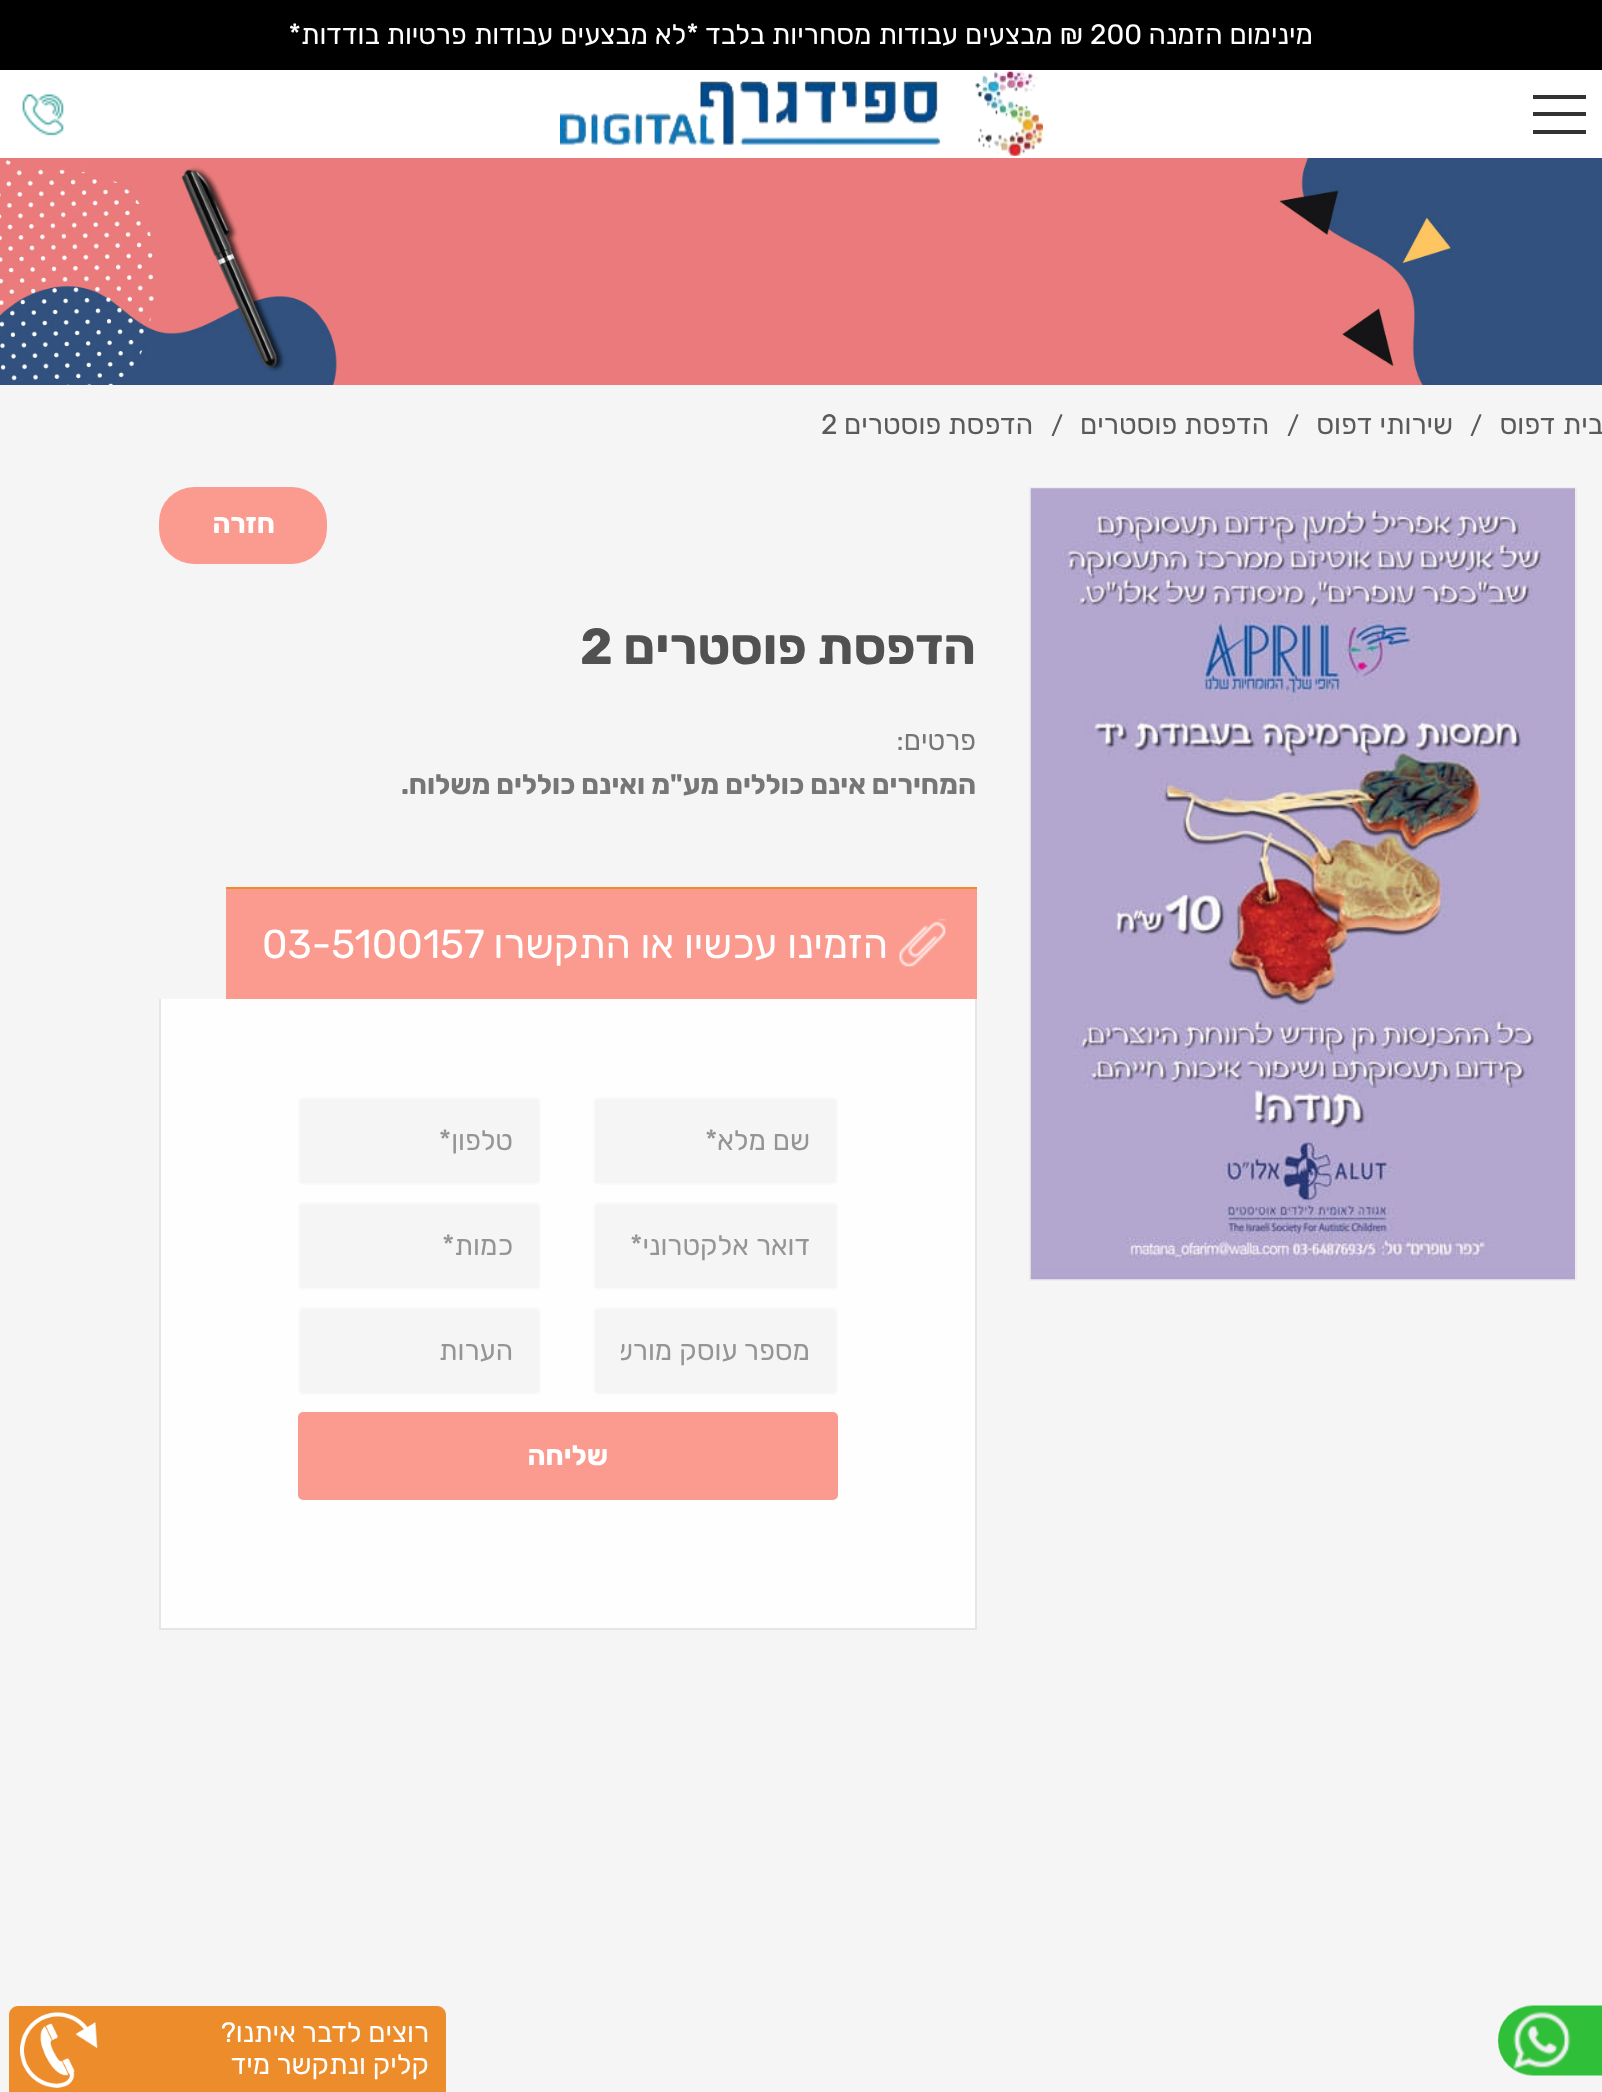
<svg xmlns="http://www.w3.org/2000/svg" width="1602" height="2092" viewBox="0 0 1602 2092">
  <defs>
    <clipPath id="clip1"><path d="M621 1334h189v33H621z"/></clipPath>
  </defs>
  <rect width="100%" height="100%" fill="#f5f5f5"/>
  <path d="M0 0h1602v70H0z" fill="#000"/>
  <path d="M0 70h1602v88H0z" fill="#fff"/>
  <path d="M1533 130h53v4H1533z" fill="#333"/>
  <path d="M1533 112h53v4H1533z" fill="#333"/>
  <path d="M1533 95h53v4H1533z" fill="#333"/>
  <image x="560" y="71" width="483" height="85" href="img/1.png"/>
  <image x="22" y="94" width="42" height="42" href="img/2.png"/>
  <image x="0" y="158" width="1602" height="227" href="img/3.png"/>
  <path d="M1030 488h546v792H1030z" fill="none" stroke="#ededed" stroke-width="2"/>
  <image x="1030" y="488" width="545" height="792" href="img/4.png"/>
  <rect x="159" y="487" width="168" height="77" rx="35" fill="#fb9b8f"/>
  <path d="M226 889h751v110H226z" fill="#fb9b8f"/>
  <path d="M226 887h751v2H226z" fill="#ed8c2b"/>
  <image x="899" y="918" width="49" height="49" href="img/5.png"/>
  <path d="M161 999h814v629H161z" fill="#fefefe"/>
  <path d="M975 999h2v630H975z" fill="#e6e6e6"/>
  <path d="M159 1628h818v2H159z" fill="#e6e6e6"/>
  <path d="M159 999h2v630H159z" fill="#e6e6e6"/>
  <rect x="594" y="1098" width="243" height="86" rx="4" fill="#f5f5f5" stroke="#fafafa" stroke-width="2"/>
  <rect x="299" y="1098" width="241" height="86" rx="4" fill="#f5f5f5" stroke="#fafafa" stroke-width="2"/>
  <rect x="594" y="1203" width="243" height="86" rx="4" fill="#f5f5f5" stroke="#fafafa" stroke-width="2"/>
  <rect x="299" y="1203" width="241" height="86" rx="4" fill="#f5f5f5" stroke="#fafafa" stroke-width="2"/>
  <rect x="594" y="1308" width="243" height="86" rx="4" fill="#f5f5f5" stroke="#fafafa" stroke-width="2"/>
  <rect x="299" y="1308" width="241" height="86" rx="4" fill="#f5f5f5" stroke="#fafafa" stroke-width="2"/>
  <rect x="298" y="1412" width="540" height="88" rx="5" fill="#fb9b8f"/>
  <image x="1498" y="2005" width="104" height="71" href="img/6.png"/>
  <path d="M18 2006H437C442 2006 446 2010 446 2015V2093H9V2015C9 2010 13 2006 18 2006Z" fill="#ed8c2b"/>
  <image x="20" y="2012" width="78" height="76" href="img/7.png"/>
  <text x="1313" y="44" font-family="Rubik" font-size="28" direction="rtl" fill="#fff">מינימום הזמנה</text>
  <text x="1090" y="44" font-family="Rubik" font-size="28" fill="#fff">200</text>
  <text x="1083" y="44" word-spacing="0.25" font-family="Rubik" font-size="28" direction="rtl" fill="#fff">₪ מבצעים עבודות מסחריות בלבד *לא מבצעים עבודות פרטיות בודדות*</text>
  <text x="1603" y="434" word-spacing="1" font-family="Rubik" font-size="28" direction="rtl" fill="#5a5a5a">בית דפוס</text>
  <text x="1470" y="434" font-family="Rubik" font-size="25" fill="#5a5a5a">/</text>
  <text x="1453" y="434" word-spacing="1" font-family="Rubik" font-size="28" direction="rtl" fill="#5a5a5a">שירותי דפוס</text>
  <text x="1287" y="434" font-family="Rubik" font-size="25" fill="#5a5a5a">/</text>
  <text x="1269" y="434" font-family="Rubik" font-size="28" direction="rtl" fill="#5a5a5a">הדפסת פוסטרים</text>
  <text x="1051" y="434" font-family="Rubik" font-size="25" fill="#5a5a5a">/</text>
  <text x="1033" y="434" font-family="Rubik" font-size="28" direction="rtl" fill="#5a5a5a">הדפסת פוסטרים</text>
  <text x="821" y="434" font-family="Rubik" font-size="28" fill="#5a5a5a">2</text>
  <text x="275" y="533" font-family="Rubik" font-size="28" font-weight="bold" direction="rtl" fill="#fff">חזרה</text>
  <text x="976" y="664" font-family="Rubik" font-size="50.5" font-weight="bold" direction="rtl" fill="#515151">הדפסת פוסטרים</text>
  <text x="580" y="664" font-family="Rubik" font-size="50.5" font-weight="bold" fill="#515151">2</text>
  <text x="976" y="750" font-family="Rubik" font-size="28" direction="rtl" fill="#767676">פרטים:</text>
  <text x="976" y="794" font-family="Rubik" font-size="28" font-weight="bold" direction="rtl" fill="#767676">המחירים אינם כוללים מע"מ ואינם כוללים משלוח.</text>
  <text x="888" y="958" font-family="Rubik" font-size="40.25" direction="rtl" fill="#fff">הזמינו עכשיו או התקשרו</text>
  <text x="262" y="958" font-family="Rubik" font-size="40.25" fill="#fff">03-5100157</text>
  <g font-family="Rubik" font-size="28" direction="rtl" fill="#959595">
    <text x="810" y="1150">שם מלא*</text>
    <text x="513" y="1150">טלפון*</text>
    <text x="810" y="1255" word-spacing="1">דואר אלקטרוני*</text>
    <text x="513" y="1255">כמות*</text>
  </g>
  <g clip-path="url(#clip1)">
    <text x="810" y="1360" font-family="Rubik" font-size="28" direction="rtl" fill="#959595">מספר עוסק מורשה</text>
  </g>
  <text x="513" y="1360" font-family="Rubik" font-size="28" direction="rtl" fill="#959595">הערות</text>
  <text x="608" y="1465" font-family="Rubik" font-size="28" font-weight="bold" direction="rtl" fill="#fff">שליחה</text>
  <g font-family="Rubik" font-size="28" direction="rtl" fill="#fff">
    <text x="429" y="2042">רוצים לדבר איתנו?</text>
    <text x="429" y="2074">קליק ונתקשר מיד</text>
  </g>
</svg>
